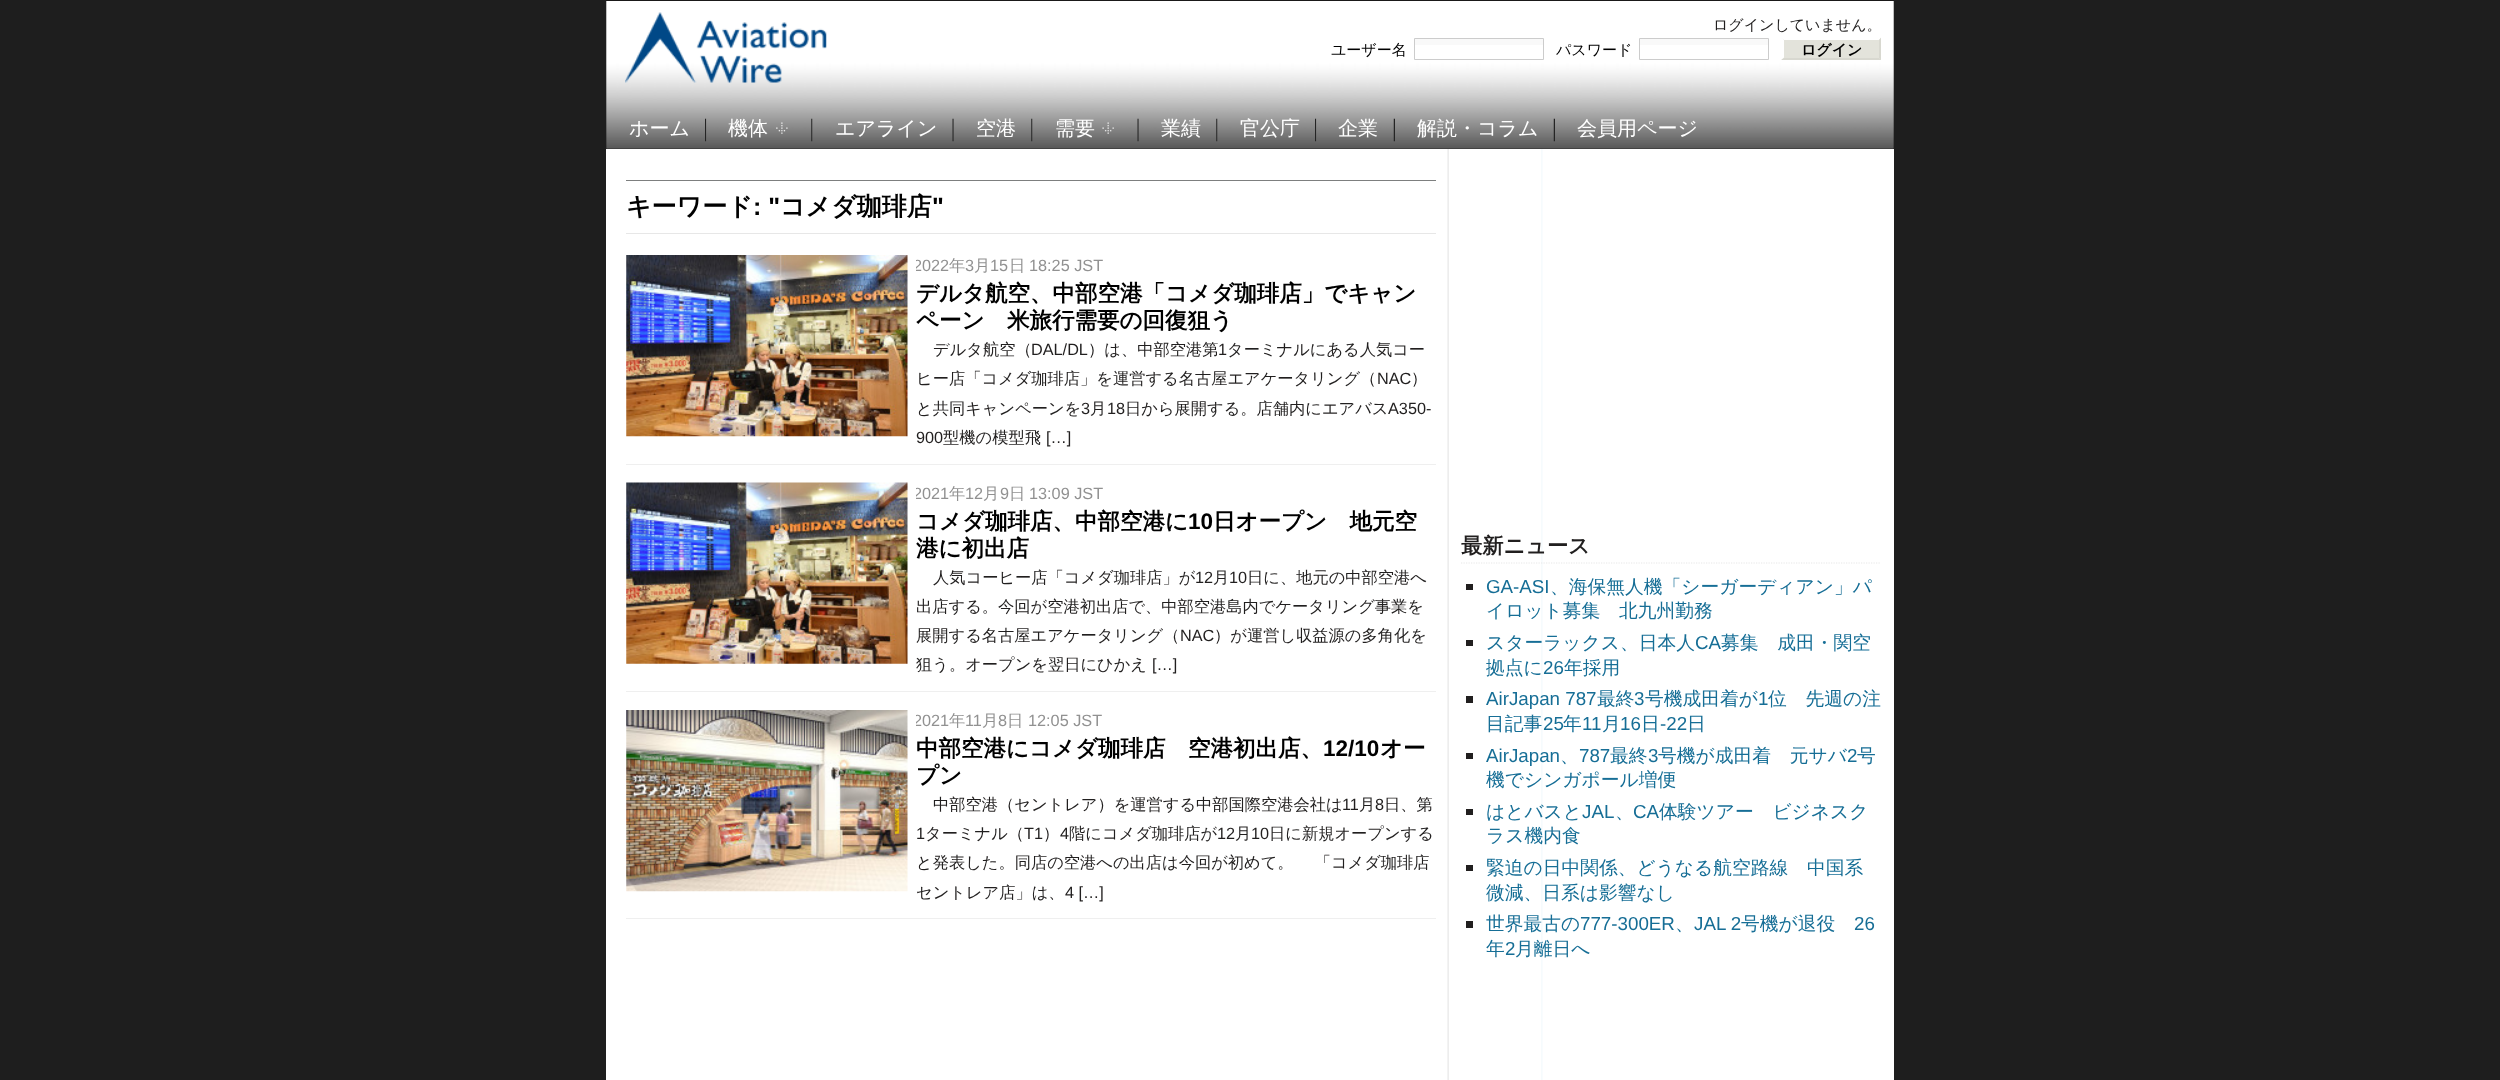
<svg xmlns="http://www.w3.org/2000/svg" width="2500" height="1080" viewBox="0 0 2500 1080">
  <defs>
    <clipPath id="clip1"><path d="M916 255h520v23H916z"/></clipPath>
    <clipPath id="clip2"><path d="M916 483h520v22H916z"/></clipPath>
    <clipPath id="clip3"><path d="M916 710h520v23H916z"/></clipPath>
  </defs>
  <rect width="100%" height="100%" fill="#1e1e1e"/>
  <path d="M606 149h1288v931H606z" fill="#fff"/>
  <image x="1447" y="149" width="96" height="931" href="img/1.png"/>
  <path d="M606 1h1288v148H606z" fill="#000"/>
  <image x="606" y="1" width="1288" height="148" href="img/2.png"/>
  <path d="M606 0h1288v1H606z" fill="#1a1919"/>
  <image x="625" y="12" width="202" height="71" href="img/3.png"/>
  <path d="M1414 39h130v6H1414z" fill="#f9f9f9"/>
  <path d="M1414.5 38.5h129v21H1414.5z" fill="none" stroke="#ccc"/>
  <path d="M1639 39h130v6H1639z" fill="#f9f9f9"/>
  <path d="M1639.5 38.5h129v21H1639.5z" fill="none" stroke="#ccc"/>
  <path d="M1781 38h100v22H1781z" fill="#e3e3db"/>
  <path d="M1781 38H1881L1879 40H1784Z" fill="#fff"/>
  <path d="M1881 37.5V60L1879 57.5V40Z" fill="#d8d8d0"/>
  <path d="M1881 60H1781L1784 58H1879Z" fill="#d8d8d0"/>
  <path d="M1781 60V37.5L1784 40V57.5Z" fill="#fff"/>
  <image x="705" y="118" width="2" height="24" href="img/4.png"/>
  <image x="811" y="118" width="2" height="24" href="img/5.png"/>
  <image x="776" y="122" width="12" height="12" href="img/6.png"/>
  <image x="952" y="118" width="2" height="24" href="img/7.png"/>
  <image x="1031" y="118" width="2" height="24" href="img/5.png"/>
  <image x="1137" y="118" width="2" height="24" href="img/7.png"/>
  <image x="1102" y="122" width="12" height="12" href="img/8.png"/>
  <image x="1216" y="118" width="2" height="24" href="img/9.png"/>
  <image x="1315" y="118" width="2" height="24" href="img/4.png"/>
  <image x="1393" y="118" width="2" height="24" href="img/10.png"/>
  <image x="1553" y="118" width="2" height="24" href="img/10.png"/>
  <path d="M626 180h810v1H626z" fill="#7d7f7f"/>
  <path d="M626 233h810v1H626z" fill="#e7e7e7"/>
  <path d="M626 464h810v1H626z" fill="#efefef"/>
  <image x="626" y="255" width="282" height="182" href="img/11.png"/>
  <path d="M626 691h810v1H626z" fill="#efefef"/>
  <image x="626" y="482" width="282" height="182" href="img/12.png"/>
  <path d="M626 918h810v1H626z" fill="#efefef"/>
  <image x="626" y="710" width="282" height="182" href="img/13.png"/>
  <path d="M1461 563H1881" fill="none" stroke="#e7e7e7" stroke-width="1.2" stroke-dasharray="1.25 1.25"/>
  <path d="M1466 584h7v6H1466z" fill="#211f1f"/>
  <path d="M1466 640h7v6H1466z" fill="#211f1f"/>
  <path d="M1466 696h7v7H1466z" fill="#211f1f"/>
  <path d="M1466 753h7v6H1466z" fill="#211f1f"/>
  <path d="M1466 809h7v6H1466z" fill="#211f1f"/>
  <path d="M1466 865h7v6H1466z" fill="#211f1f"/>
  <path d="M1466 921h7v7H1466z" fill="#211f1f"/>
  <text x="1713" y="30" font-family="WenQuanYi Zen Hei" font-size="15" font-weight="500" fill="#211f1f">ログインしていません。</text>
  <g font-family="WenQuanYi Zen Hei" font-size="15" font-weight="500" fill="#000">
    <text x="1331" y="55">ユーザー名</text>
    <text x="1556" y="55">パスワード</text>
  </g>
  <text x="1801" y="55" font-family="WenQuanYi Zen Hei" font-size="15" font-weight="bold" fill="#000">ログイン</text>
  <g font-family="WenQuanYi Zen Hei" font-size="20" font-weight="500" fill="#fff">
    <text x="629" y="135">ホーム</text>
    <text x="728" y="135">機体</text>
    <text x="835" y="135">エアライン</text>
    <text x="976" y="135">空港</text>
    <text x="1055" y="135">需要</text>
    <text x="1161" y="135">業績</text>
    <text x="1240" y="135">官公庁</text>
    <text x="1338" y="135">企業</text>
    <text x="1417" y="135">解説・コラム</text>
    <text x="1577" y="135">会員用ページ</text>
  </g>
  <text x="626" y="215" font-family="WenQuanYi Zen Hei" font-size="25" font-weight="bold" fill="#000">キーワード</text>
  <text x="753" y="215" font-family="Liberation Sans" font-size="25" font-weight="bold" fill="#000">: "</text>
  <text x="780" y="215" font-family="WenQuanYi Zen Hei" font-size="25" font-weight="bold" fill="#000">コメダ珈琲店</text>
  <text x="932" y="215" font-family="Liberation Sans" font-size="25" font-weight="bold" fill="#000">"</text>
  <g clip-path="url(#clip1)">
    <text x="913" y="271" font-family="Liberation Sans" font-size="16.25" fill="#919191">2022</text>
  </g>
  <text x="949" y="271" font-family="WenQuanYi Zen Hei" font-size="16.25" font-weight="500" fill="#919191">年</text>
  <text x="965" y="271" font-family="Liberation Sans" font-size="16.25" fill="#919191">3</text>
  <text x="974" y="271" font-family="WenQuanYi Zen Hei" font-size="16.25" font-weight="500" fill="#919191">月</text>
  <text x="990" y="271" font-family="Liberation Sans" font-size="16.25" fill="#919191">15</text>
  <text x="1009" y="271" font-family="WenQuanYi Zen Hei" font-size="16.25" font-weight="500" fill="#919191">日</text>
  <text x="1029" y="271" font-family="Liberation Sans" font-size="16.25" fill="#919191">18:25 JST</text>
  <g font-family="WenQuanYi Zen Hei" font-size="22.5" font-weight="bold" fill="#000">
    <text x="916" y="301">デルタ航空、中部空港「コメダ珈琲店」でキャン</text>
    <text x="916" y="328">ペーン　米旅行需要の回復狙う</text>
  </g>
  <text x="933" y="355" font-family="WenQuanYi Zen Hei" font-size="16.25" font-weight="500" fill="#211f1f">デルタ航空（</text>
  <text x="1031" y="355" font-family="Liberation Sans" font-size="16.25" fill="#211f1f">DAL/DL</text>
  <text x="1088" y="355" font-family="WenQuanYi Zen Hei" font-size="16.25" font-weight="500" fill="#211f1f">）は、中部空港第</text>
  <text x="1218" y="355" font-family="Liberation Sans" font-size="16.25" fill="#211f1f">1</text>
  <g font-family="WenQuanYi Zen Hei" font-size="16.25" font-weight="500" fill="#211f1f">
    <text x="1227" y="355">ターミナルにある人気コー</text>
    <text x="916" y="384">ヒー店「コメダ珈琲店」を運営する名古屋エアケータリング（</text>
  </g>
  <text x="1377" y="384" font-family="Liberation Sans" font-size="16.25" fill="#211f1f">NAC</text>
  <g font-family="WenQuanYi Zen Hei" font-size="16.25" font-weight="500" fill="#211f1f">
    <text x="1411" y="384">）</text>
    <text x="916" y="414">と共同キャンペーンを</text>
  </g>
  <text x="1081" y="414" font-family="Liberation Sans" font-size="16.25" fill="#211f1f">3</text>
  <text x="1090" y="414" font-family="WenQuanYi Zen Hei" font-size="16.25" font-weight="500" fill="#211f1f">月</text>
  <text x="1107" y="414" font-family="Liberation Sans" font-size="16.25" fill="#211f1f">18</text>
  <text x="1125" y="414" font-family="WenQuanYi Zen Hei" font-size="16.25" font-weight="500" fill="#211f1f">日から展開する。店舗内にエアバス</text>
  <g font-family="Liberation Sans" font-size="16.25" fill="#211f1f">
    <text x="1388" y="414">A350-</text>
    <text x="916" y="443">900</text>
  </g>
  <text x="943" y="443" font-family="WenQuanYi Zen Hei" font-size="16.25" font-weight="500" fill="#211f1f">型機の模型飛</text>
  <text x="1046" y="443" font-family="Liberation Sans" font-size="16.25" fill="#211f1f">[…]</text>
  <g clip-path="url(#clip2)">
    <text x="913" y="499" font-family="Liberation Sans" font-size="16.25" fill="#919191">2021</text>
  </g>
  <text x="949" y="499" font-family="WenQuanYi Zen Hei" font-size="16.25" font-weight="500" fill="#919191">年</text>
  <text x="965" y="499" font-family="Liberation Sans" font-size="16.25" fill="#919191">12</text>
  <text x="983" y="499" font-family="WenQuanYi Zen Hei" font-size="16.25" font-weight="500" fill="#919191">月</text>
  <text x="1000" y="499" font-family="Liberation Sans" font-size="16.25" fill="#919191">9</text>
  <text x="1009" y="499" font-family="WenQuanYi Zen Hei" font-size="16.25" font-weight="500" fill="#919191">日</text>
  <text x="1029" y="499" font-family="Liberation Sans" font-size="16.25" fill="#919191">13:09 JST</text>
  <text x="916" y="529" font-family="WenQuanYi Zen Hei" font-size="22.5" font-weight="bold" fill="#000">コメダ珈琲店、中部空港に</text>
  <text x="1188" y="529" font-family="Liberation Sans" font-size="22.5" font-weight="bold" fill="#000">10</text>
  <g font-family="WenQuanYi Zen Hei" font-size="22.5" font-weight="bold" fill="#000">
    <text x="1213" y="529">日オープン　地元空</text>
    <text x="916" y="556">港に初出店</text>
  </g>
  <text x="933" y="583" font-family="WenQuanYi Zen Hei" font-size="16.25" font-weight="500" fill="#211f1f">人気コーヒー店「コメダ珈琲店」が</text>
  <text x="1195" y="583" font-family="Liberation Sans" font-size="16.25" fill="#211f1f">12</text>
  <text x="1213" y="583" font-family="WenQuanYi Zen Hei" font-size="16.25" font-weight="500" fill="#211f1f">月</text>
  <text x="1229" y="583" font-family="Liberation Sans" font-size="16.25" fill="#211f1f">10</text>
  <g font-family="WenQuanYi Zen Hei" font-size="16.25" font-weight="500" fill="#211f1f">
    <text x="1247" y="583">日に、地元の中部空港へ</text>
    <text x="916" y="612">出店する。今回が空港初出店で、中部空港島内でケータリング事業を</text>
    <text x="916" y="641">展開する名古屋エアケータリング（</text>
  </g>
  <text x="1180" y="641" font-family="Liberation Sans" font-size="16.25" fill="#211f1f">NAC</text>
  <g font-family="WenQuanYi Zen Hei" font-size="16.25" font-weight="500" fill="#211f1f">
    <text x="1214" y="641">）が運営し収益源の多角化を</text>
    <text x="916" y="670">狙う。オープンを翌日にひかえ</text>
  </g>
  <text x="1152" y="670" font-family="Liberation Sans" font-size="16.25" fill="#211f1f">[…]</text>
  <g clip-path="url(#clip3)">
    <text x="913" y="726" font-family="Liberation Sans" font-size="16.25" fill="#919191">2021</text>
  </g>
  <text x="949" y="726" font-family="WenQuanYi Zen Hei" font-size="16.25" font-weight="500" fill="#919191">年</text>
  <text x="965" y="726" font-family="Liberation Sans" font-size="16.25" fill="#919191">11</text>
  <text x="982" y="726" font-family="WenQuanYi Zen Hei" font-size="16.25" font-weight="500" fill="#919191">月</text>
  <text x="998" y="726" font-family="Liberation Sans" font-size="16.25" fill="#919191">8</text>
  <text x="1007" y="726" font-family="WenQuanYi Zen Hei" font-size="16.25" font-weight="500" fill="#919191">日</text>
  <text x="1028" y="726" font-family="Liberation Sans" font-size="16.25" fill="#919191">12:05 JST</text>
  <text x="916" y="756" font-family="WenQuanYi Zen Hei" font-size="22.5" font-weight="bold" fill="#000">中部空港にコメダ珈琲店　空港初出店、</text>
  <text x="1323" y="756" font-family="Liberation Sans" font-size="22.5" font-weight="bold" fill="#000">12/10</text>
  <g font-family="WenQuanYi Zen Hei" font-size="22.5" font-weight="bold" fill="#000">
    <text x="1380" y="756">オー</text>
    <text x="916" y="783">プン</text>
  </g>
  <text x="933" y="810" font-family="WenQuanYi Zen Hei" font-size="16.25" font-weight="500" fill="#211f1f">中部空港（セントレア）を運営する中部国際空港会社は</text>
  <text x="1342" y="810" font-family="Liberation Sans" font-size="16.25" fill="#211f1f">11</text>
  <text x="1359" y="810" font-family="WenQuanYi Zen Hei" font-size="16.25" font-weight="500" fill="#211f1f">月</text>
  <text x="1375" y="810" font-family="Liberation Sans" font-size="16.25" fill="#211f1f">8</text>
  <text x="1384" y="810" font-family="WenQuanYi Zen Hei" font-size="16.25" font-weight="500" fill="#211f1f">日、第</text>
  <text x="916" y="839" font-family="Liberation Sans" font-size="16.25" fill="#211f1f">1</text>
  <text x="925" y="839" font-family="WenQuanYi Zen Hei" font-size="16.25" font-weight="500" fill="#211f1f">ターミナル（</text>
  <text x="1024" y="839" font-family="Liberation Sans" font-size="16.25" fill="#211f1f">T1</text>
  <text x="1043" y="839" font-family="WenQuanYi Zen Hei" font-size="16.25" font-weight="500" fill="#211f1f">）</text>
  <text x="1060" y="839" font-family="Liberation Sans" font-size="16.25" fill="#211f1f">4</text>
  <text x="1069" y="839" font-family="WenQuanYi Zen Hei" font-size="16.25" font-weight="500" fill="#211f1f">階にコメダ珈琲店が</text>
  <text x="1217" y="839" font-family="Liberation Sans" font-size="16.25" fill="#211f1f">12</text>
  <text x="1235" y="839" font-family="WenQuanYi Zen Hei" font-size="16.25" font-weight="500" fill="#211f1f">月</text>
  <text x="1251" y="839" font-family="Liberation Sans" font-size="16.25" fill="#211f1f">10</text>
  <g font-family="WenQuanYi Zen Hei" font-size="16.25" font-weight="500" fill="#211f1f">
    <text x="1269" y="839">日に新規オープンする</text>
    <text x="916" y="868">と発表した。同店の空港への出店は今回が初めて。 　「コメダ珈琲店</text>
    <text x="916" y="898">セントレア店」は、</text>
  </g>
  <text x="1065" y="898" font-family="Liberation Sans" font-size="16.25" fill="#211f1f">4 […]</text>
  <text x="1461" y="553" font-family="WenQuanYi Zen Hei" font-size="21.25" font-weight="bold" fill="#211f1f">最新ニュース</text>
  <text x="1486" y="593" font-family="Liberation Sans" font-size="18.75" fill="#166e96">GA-ASI</text>
  <g font-family="WenQuanYi Zen Hei" font-size="18.75" font-weight="500" fill="#166e96">
    <text x="1550" y="593">、海保無人機「シーガーディアン」パ</text>
    <text x="1486" y="617">イロット募集　北九州勤務</text>
    <text x="1486" y="649">スターラックス、日本人</text>
  </g>
  <text x="1695" y="649" font-family="Liberation Sans" font-size="18.75" fill="#166e96">CA</text>
  <g font-family="WenQuanYi Zen Hei" font-size="18.75" font-weight="500" fill="#166e96">
    <text x="1721" y="649">募集　成田・関空</text>
    <text x="1486" y="674">拠点に</text>
  </g>
  <text x="1543" y="674" font-family="Liberation Sans" font-size="18.75" fill="#166e96">26</text>
  <text x="1564" y="674" font-family="WenQuanYi Zen Hei" font-size="18.75" font-weight="500" fill="#166e96">年採用</text>
  <text x="1486" y="705" font-family="Liberation Sans" font-size="18.75" fill="#166e96">AirJapan 787</text>
  <text x="1597" y="705" font-family="WenQuanYi Zen Hei" font-size="18.75" font-weight="500" fill="#166e96">最終</text>
  <text x="1634" y="705" font-family="Liberation Sans" font-size="18.75" fill="#166e96">3</text>
  <text x="1645" y="705" font-family="WenQuanYi Zen Hei" font-size="18.75" font-weight="500" fill="#166e96">号機成田着が</text>
  <text x="1758" y="705" font-family="Liberation Sans" font-size="18.75" fill="#166e96">1</text>
  <g font-family="WenQuanYi Zen Hei" font-size="18.75" font-weight="500" fill="#166e96">
    <text x="1768" y="705">位　先週の注</text>
    <text x="1486" y="730">目記事</text>
  </g>
  <text x="1543" y="730" font-family="Liberation Sans" font-size="18.75" fill="#166e96">25</text>
  <text x="1563" y="730" font-family="WenQuanYi Zen Hei" font-size="18.75" font-weight="500" fill="#166e96">年</text>
  <text x="1582" y="730" font-family="Liberation Sans" font-size="18.75" fill="#166e96">11</text>
  <text x="1602" y="730" font-family="WenQuanYi Zen Hei" font-size="18.75" font-weight="500" fill="#166e96">月</text>
  <text x="1620" y="730" font-family="Liberation Sans" font-size="18.75" fill="#166e96">16</text>
  <text x="1641" y="730" font-family="WenQuanYi Zen Hei" font-size="18.75" font-weight="500" fill="#166e96">日</text>
  <text x="1660" y="730" font-family="Liberation Sans" font-size="18.75" fill="#166e96">-22</text>
  <text x="1687" y="730" font-family="WenQuanYi Zen Hei" font-size="18.75" font-weight="500" fill="#166e96">日</text>
  <g font-family="Liberation Sans" font-size="18.75" fill="#166e96">
    <text x="1486" y="762">AirJapan</text>
    <text x="1579" y="762">787</text>
  </g>
  <text x="1610" y="762" font-family="WenQuanYi Zen Hei" font-size="18.75" font-weight="500" fill="#166e96">最終</text>
  <text x="1648" y="762" font-family="Liberation Sans" font-size="18.75" fill="#166e96">3</text>
  <text x="1658" y="762" font-family="WenQuanYi Zen Hei" font-size="18.75" font-weight="500" fill="#166e96">号機が成田着　元サバ</text>
  <text x="1847" y="762" font-family="Liberation Sans" font-size="18.75" fill="#166e96">2</text>
  <g font-family="WenQuanYi Zen Hei" font-size="18.75" font-weight="500" fill="#166e96">
    <text x="1857" y="762">号</text>
    <text x="1560" y="762">、</text>
    <text x="1486" y="786">機でシンガポール増便</text>
    <text x="1486" y="818">はとバスと</text>
  </g>
  <g font-family="Liberation Sans" font-size="18.75" fill="#166e96">
    <text x="1582" y="818">JAL</text>
    <text x="1633" y="818">CA</text>
  </g>
  <g font-family="WenQuanYi Zen Hei" font-size="18.75" font-weight="500" fill="#166e96">
    <text x="1659" y="818">体験ツアー　ビジネスク</text>
    <text x="1615" y="818">、</text>
    <text x="1486" y="842">ラス機内食</text>
    <text x="1486" y="874">緊迫の日中関係、どうなる航空路線　中国系</text>
    <text x="1486" y="899">微減、日系は影響なし</text>
    <text x="1486" y="930">世界最古の</text>
  </g>
  <g font-family="Liberation Sans" font-size="18.75" fill="#166e96">
    <text x="1580" y="930">777-300ER</text>
    <text x="1694" y="930">JAL 2</text>
  </g>
  <text x="1741" y="930" font-family="WenQuanYi Zen Hei" font-size="18.75" font-weight="500" fill="#166e96">号機が退役</text>
  <text x="1854" y="930" font-family="Liberation Sans" font-size="18.75" fill="#166e96">26</text>
  <g font-family="WenQuanYi Zen Hei" font-size="18.75" font-weight="500" fill="#166e96">
    <text x="1675" y="930">、</text>
    <text x="1486" y="955">年</text>
  </g>
  <text x="1505" y="955" font-family="Liberation Sans" font-size="18.75" fill="#166e96">2</text>
  <text x="1515" y="955" font-family="WenQuanYi Zen Hei" font-size="18.75" font-weight="500" fill="#166e96">月離日へ</text>
</svg>
